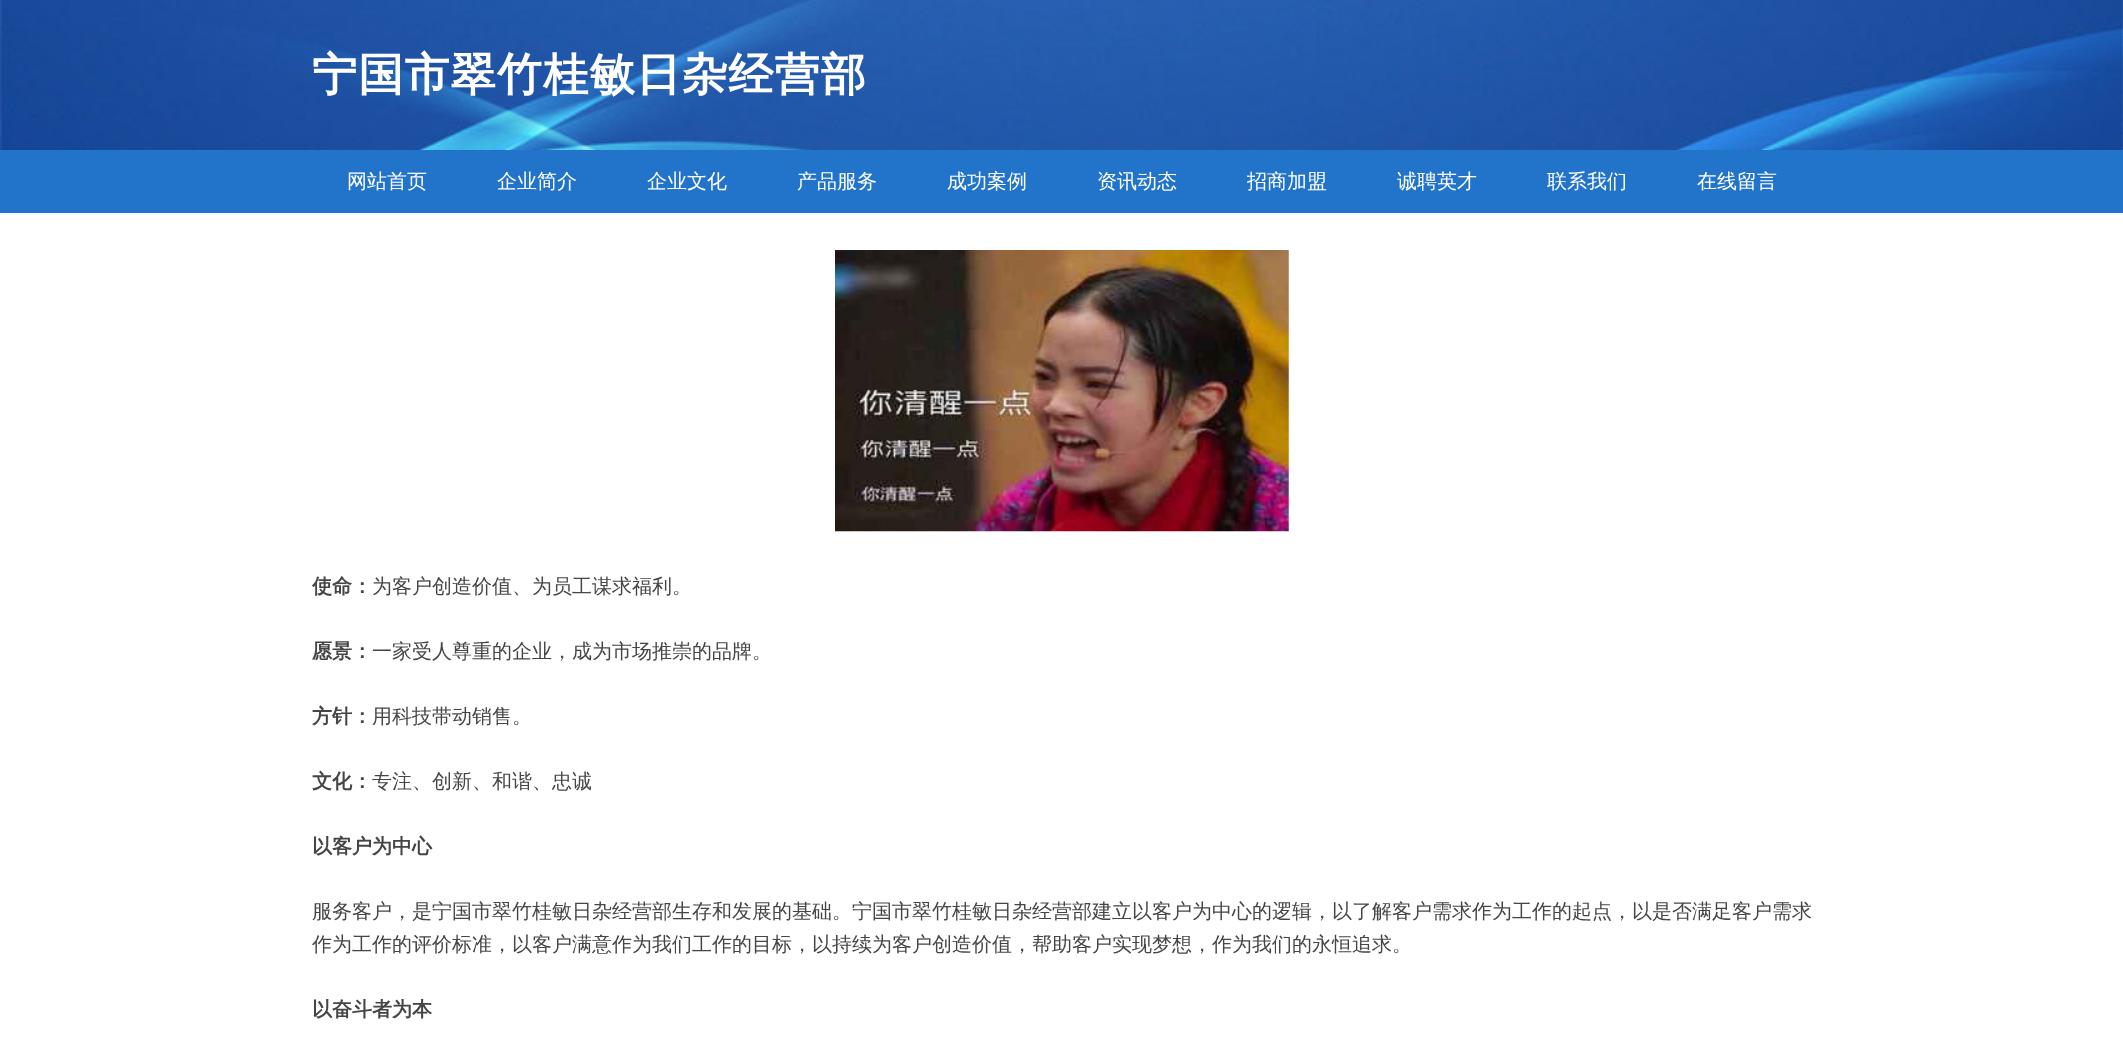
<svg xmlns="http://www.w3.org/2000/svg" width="2123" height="1061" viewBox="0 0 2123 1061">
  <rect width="100%" height="100%" fill="#fff"/>
  <image x="0" y="0" width="2123" height="150" href="img/1.png"/>
  <path d="M0 150h2123v63H0z" fill="#2274ca"/>
  <image x="835" y="250" width="454" height="282" href="img/2.png"/>
  <text x="312" y="90" font-family="WenQuanYi Zen Hei" font-size="45" font-weight="bold" letter-spacing="1.25" fill="#fff">宁国市翠竹桂敏日杂经营部</text>
  <g font-family="WenQuanYi Zen Hei" font-size="20" font-weight="500" fill="#fff">
    <text x="347" y="188">网站首页</text>
    <text x="497" y="188">企业简介</text>
    <text x="647" y="188">企业文化</text>
    <text x="797" y="188">产品服务</text>
    <text x="947" y="188">成功案例</text>
    <text x="1097" y="188">资讯动态</text>
    <text x="1247" y="188">招商加盟</text>
    <text x="1397" y="188">诚聘英才</text>
    <text x="1547" y="188">联系我们</text>
    <text x="1697" y="188">在线留言</text>
  </g>
  <text x="312" y="593" font-family="WenQuanYi Zen Hei" font-size="20" font-weight="bold" fill="#454545">使命：</text>
  <text x="372" y="593" font-family="WenQuanYi Zen Hei" font-size="20" font-weight="500" fill="#454545">为客户创造价值、为员工谋求福利。</text>
  <text x="312" y="658" font-family="WenQuanYi Zen Hei" font-size="20" font-weight="bold" fill="#454545">愿景：</text>
  <text x="372" y="658" font-family="WenQuanYi Zen Hei" font-size="20" font-weight="500" fill="#454545">一家受人尊重的企业，成为市场推崇的品牌。</text>
  <text x="312" y="723" font-family="WenQuanYi Zen Hei" font-size="20" font-weight="bold" fill="#454545">方针：</text>
  <text x="372" y="723" font-family="WenQuanYi Zen Hei" font-size="20" font-weight="500" fill="#454545">用科技带动销售。</text>
  <text x="312" y="788" font-family="WenQuanYi Zen Hei" font-size="20" font-weight="bold" fill="#454545">文化：</text>
  <text x="372" y="788" font-family="WenQuanYi Zen Hei" font-size="20" font-weight="500" fill="#454545">专注、创新、和谐、忠诚</text>
  <text x="312" y="853" font-family="WenQuanYi Zen Hei" font-size="20" font-weight="bold" fill="#454545">以客户为中心</text>
  <g font-family="WenQuanYi Zen Hei" font-size="20" font-weight="500" fill="#454545">
    <text x="312" y="918">服务客户，是宁国市翠竹桂敏日杂经营部生存和发展的基础。宁国市翠竹桂敏日杂经营部建立以客户为中心的逻辑，以了解客户需求作为工作的起点，以是否满足客户需求</text>
    <text x="312" y="951">作为工作的评价标准，以客户满意作为我们工作的目标，以持续为客户创造价值，帮助客户实现梦想，作为我们的永恒追求。</text>
  </g>
  <text x="312" y="1016" font-family="WenQuanYi Zen Hei" font-size="20" font-weight="bold" fill="#454545">以奋斗者为本</text>
</svg>
